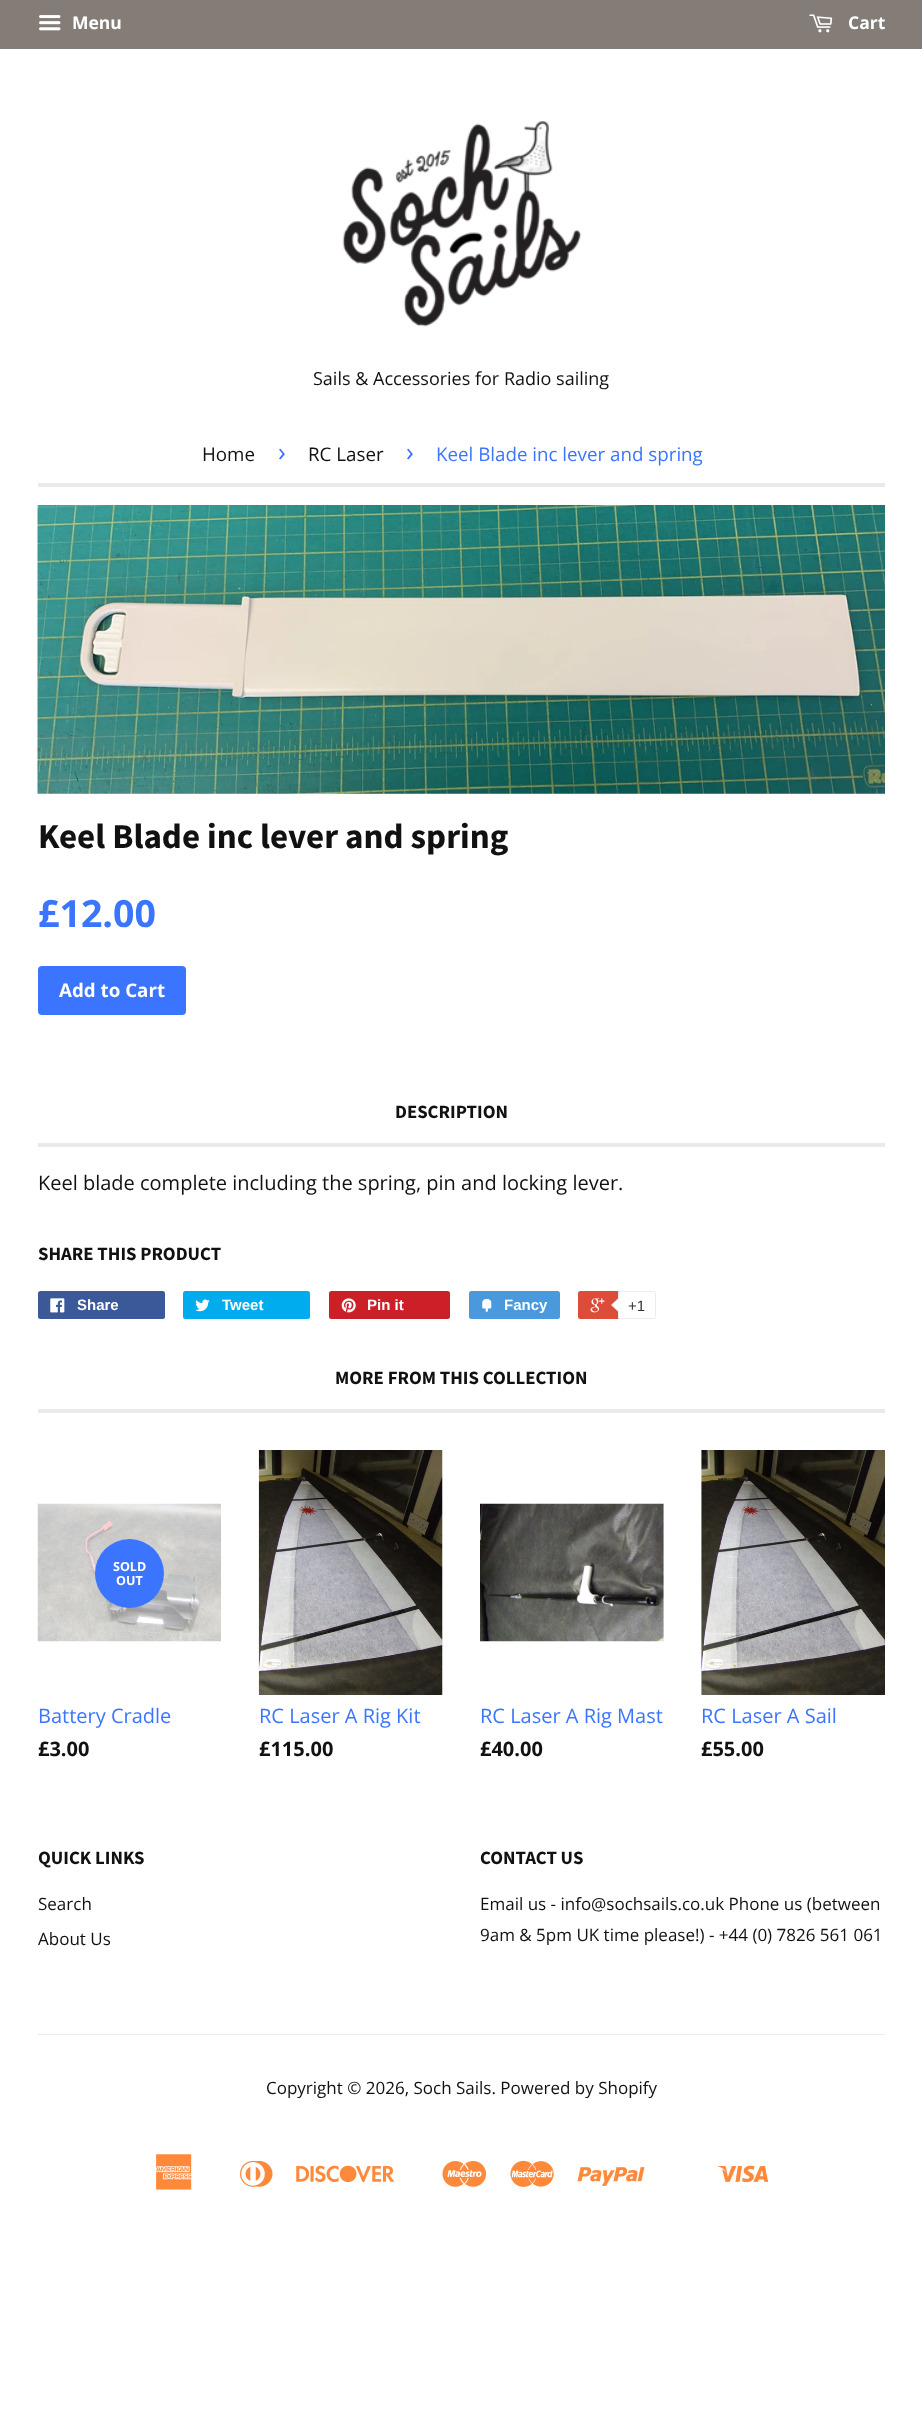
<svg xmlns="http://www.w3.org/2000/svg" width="922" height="2416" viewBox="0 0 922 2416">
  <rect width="100%" height="100%" fill="#fff"/>
  <path d="M0 0h922v49H0z" fill="#847c77"/>
  <image x="39" y="15" width="22" height="16" href="img/1.png"/>
  <image x="809" y="14" width="24" height="19" href="img/2.png"/>
  <image x="342" y="121" width="240" height="206" href="img/3.png"/>
  <path d="M38 483h847v4H38z" fill="#eaeaea"/>
  <image x="37" y="505" width="848" height="289" href="img/4.png"/>
  <rect x="38" y="966" width="148" height="49" rx="4" fill="#3b75ff"/>
  <path d="M38 1143h847v4H38z" fill="#eaeaea"/>
  <rect x="38" y="1291" width="127" height="28" rx="2.5" fill="#3b5998"/>
  <image x="50" y="1298" width="15" height="15" href="img/5.png"/>
  <rect x="183" y="1291" width="127" height="28" rx="2.5" fill="#00aced"/>
  <image x="195" y="1299" width="15" height="13" href="img/6.png"/>
  <rect x="329" y="1291" width="121" height="28" rx="2.5" fill="#cb2027"/>
  <image x="341" y="1298" width="15" height="15" href="img/7.png"/>
  <rect x="469" y="1291" width="91" height="28" rx="2.5" fill="#4999dc"/>
  <image x="482" y="1298" width="10" height="14" href="img/8.png"/>
  <rect x="578" y="1291" width="76" height="28" rx="2.5" fill="#dd4b39"/>
  <image x="590" y="1298" width="15" height="15" href="img/9.png"/>
  <path d="M618.5 1291.5H653.5C654.5 1291.5 655.5 1292.5 655.5 1293.5V1316.5C655.5 1317.5 654.5 1318.5 653.5 1318.5H618.5Z" fill="#fff" stroke="#ececec"/>
  <path d="M619 1297.5V1312.5L611 1305Z" fill="#ececec"/>
  <path d="M620 1297.5V1312.5L612.5 1305Z" fill="#fff"/>
  <path d="M38 1409h847v4H38z" fill="#eaeaea"/>
  <image x="37" y="1503" width="184" height="139" href="img/10.png"/>
  <circle cx="129.5" cy="1573.5" r="34.5" fill="#3b75ff"/>
  <image x="258" y="1450" width="185" height="245" href="img/11.png"/>
  <image x="480" y="1503" width="184" height="139" href="img/12.png"/>
  <image x="701" y="1450" width="184" height="245" href="img/13.png"/>
  <path d="M38 2034h847v1H38z" fill="#eaeaea"/>
  <image x="156" y="2154" width="36" height="36" href="img/14.png"/>
  <image x="240" y="2161" width="33" height="26" href="img/15.png"/>
  <image x="296" y="2165" width="99" height="18" href="img/16.png"/>
  <image x="442" y="2161" width="45" height="26" href="img/17.png"/>
  <image x="510" y="2160" width="44" height="27" href="img/18.png"/>
  <image x="577" y="2167" width="68" height="19" href="img/19.png"/>
  <image x="717" y="2165" width="52" height="18" href="img/20.png"/>
  <g font-family="Open Sans" font-size="17.5" font-weight="bold" fill="#fff">
    <text x="72" y="29">Menu</text>
    <text x="848" y="29">Cart</text>
  </g>
  <text x="313" y="385" font-family="Open Sans" font-size="18" fill="#111">Sails &amp; Accessories for Radio sailing</text>
  <text x="202" y="461" font-family="Open Sans" font-size="18.75" fill="#111">Home</text>
  <text x="278" y="461" font-family="Open Sans" font-size="26" fill="#3b75ff">›</text>
  <text x="308" y="461" font-family="Open Sans" font-size="18.75" fill="#111">RC Laser</text>
  <text x="406" y="461" font-family="Open Sans" font-size="26" fill="#3b75ff">›</text>
  <text x="436" y="461" font-family="Open Sans" font-size="18.75" fill="#3b75ff">Keel Blade inc lever and spring</text>
  <text x="38" y="848" font-family="Source Sans Pro" font-size="35" font-weight="bold" fill="#111">Keel Blade inc lever and spring</text>
  <text x="38" y="927" font-family="Open Sans" font-size="37.5" font-weight="bold" fill="#3b75ff">£12.00</text>
  <text x="59" y="997" font-family="Open Sans" font-size="18.75" font-weight="bold" fill="#fff">Add to Cart</text>
  <text x="395" y="1118" font-family="Source Sans Pro" font-size="18.75" font-weight="bold" fill="#111">DESCRIPTION</text>
  <text x="38" y="1190" font-family="Open Sans" font-size="20" fill="#111">Keel blade complete including the spring, pin and locking lever.</text>
  <text x="38" y="1260" font-family="Source Sans Pro" font-size="18.75" font-weight="bold" fill="#111">SHARE THIS PRODUCT</text>
  <g font-family="Liberation Sans" font-size="15" font-weight="bold" fill="#fff">
    <text x="77" y="1310">Share</text>
    <text x="222" y="1310">Tweet</text>
    <text x="367" y="1310">Pin it</text>
    <text x="504" y="1310">Fancy</text>
  </g>
  <text x="628" y="1311" font-family="Liberation Sans" font-size="15" fill="#333">+1</text>
  <text x="335" y="1384" font-family="Source Sans Pro" font-size="18.75" font-weight="bold" fill="#111">MORE FROM THIS COLLECTION</text>
  <g font-family="Open Sans" font-size="12.5" font-weight="bold" fill="#fff">
    <text x="113" y="1571">SOLD</text>
    <text x="116" y="1585">OUT</text>
  </g>
  <text x="38" y="1723" font-family="Open Sans" font-size="20" fill="#3b75ff">Battery Cradle</text>
  <text x="38" y="1756" font-family="Open Sans" font-size="20" font-weight="bold" fill="#111">£3.00</text>
  <text x="259" y="1723" font-family="Open Sans" font-size="20" fill="#3b75ff">RC Laser A Rig Kit</text>
  <text x="259" y="1756" font-family="Open Sans" font-size="20" font-weight="bold" fill="#111">£115.00</text>
  <text x="480" y="1723" font-family="Open Sans" font-size="20" fill="#3b75ff">RC Laser A Rig Mast</text>
  <text x="480" y="1756" font-family="Open Sans" font-size="20" font-weight="bold" fill="#111">£40.00</text>
  <text x="701" y="1723" font-family="Open Sans" font-size="20" fill="#3b75ff">RC Laser A Sail</text>
  <text x="701" y="1756" font-family="Open Sans" font-size="20" font-weight="bold" fill="#111">£55.00</text>
  <text x="38" y="1864" font-family="Source Sans Pro" font-size="18.75" font-weight="bold" fill="#111">QUICK LINKS</text>
  <g font-family="Open Sans" font-size="17" fill="#111">
    <text x="38" y="1910">Search</text>
    <text x="38" y="1945">About Us</text>
  </g>
  <text x="480" y="1864" font-family="Source Sans Pro" font-size="18.75" font-weight="bold" fill="#111">CONTACT US</text>
  <g font-family="Open Sans" font-size="17" fill="#111">
    <text x="480" y="1910">Email us - info@sochsails.co.uk Phone us (between</text>
    <text x="480" y="1941">9am &amp; 5pm UK time please!) - +44 (0) 7826 561 061</text>
    <text x="266" y="2094">Copyright © 2026, Soch Sails. Powered by Shopify</text>
  </g>
</svg>
